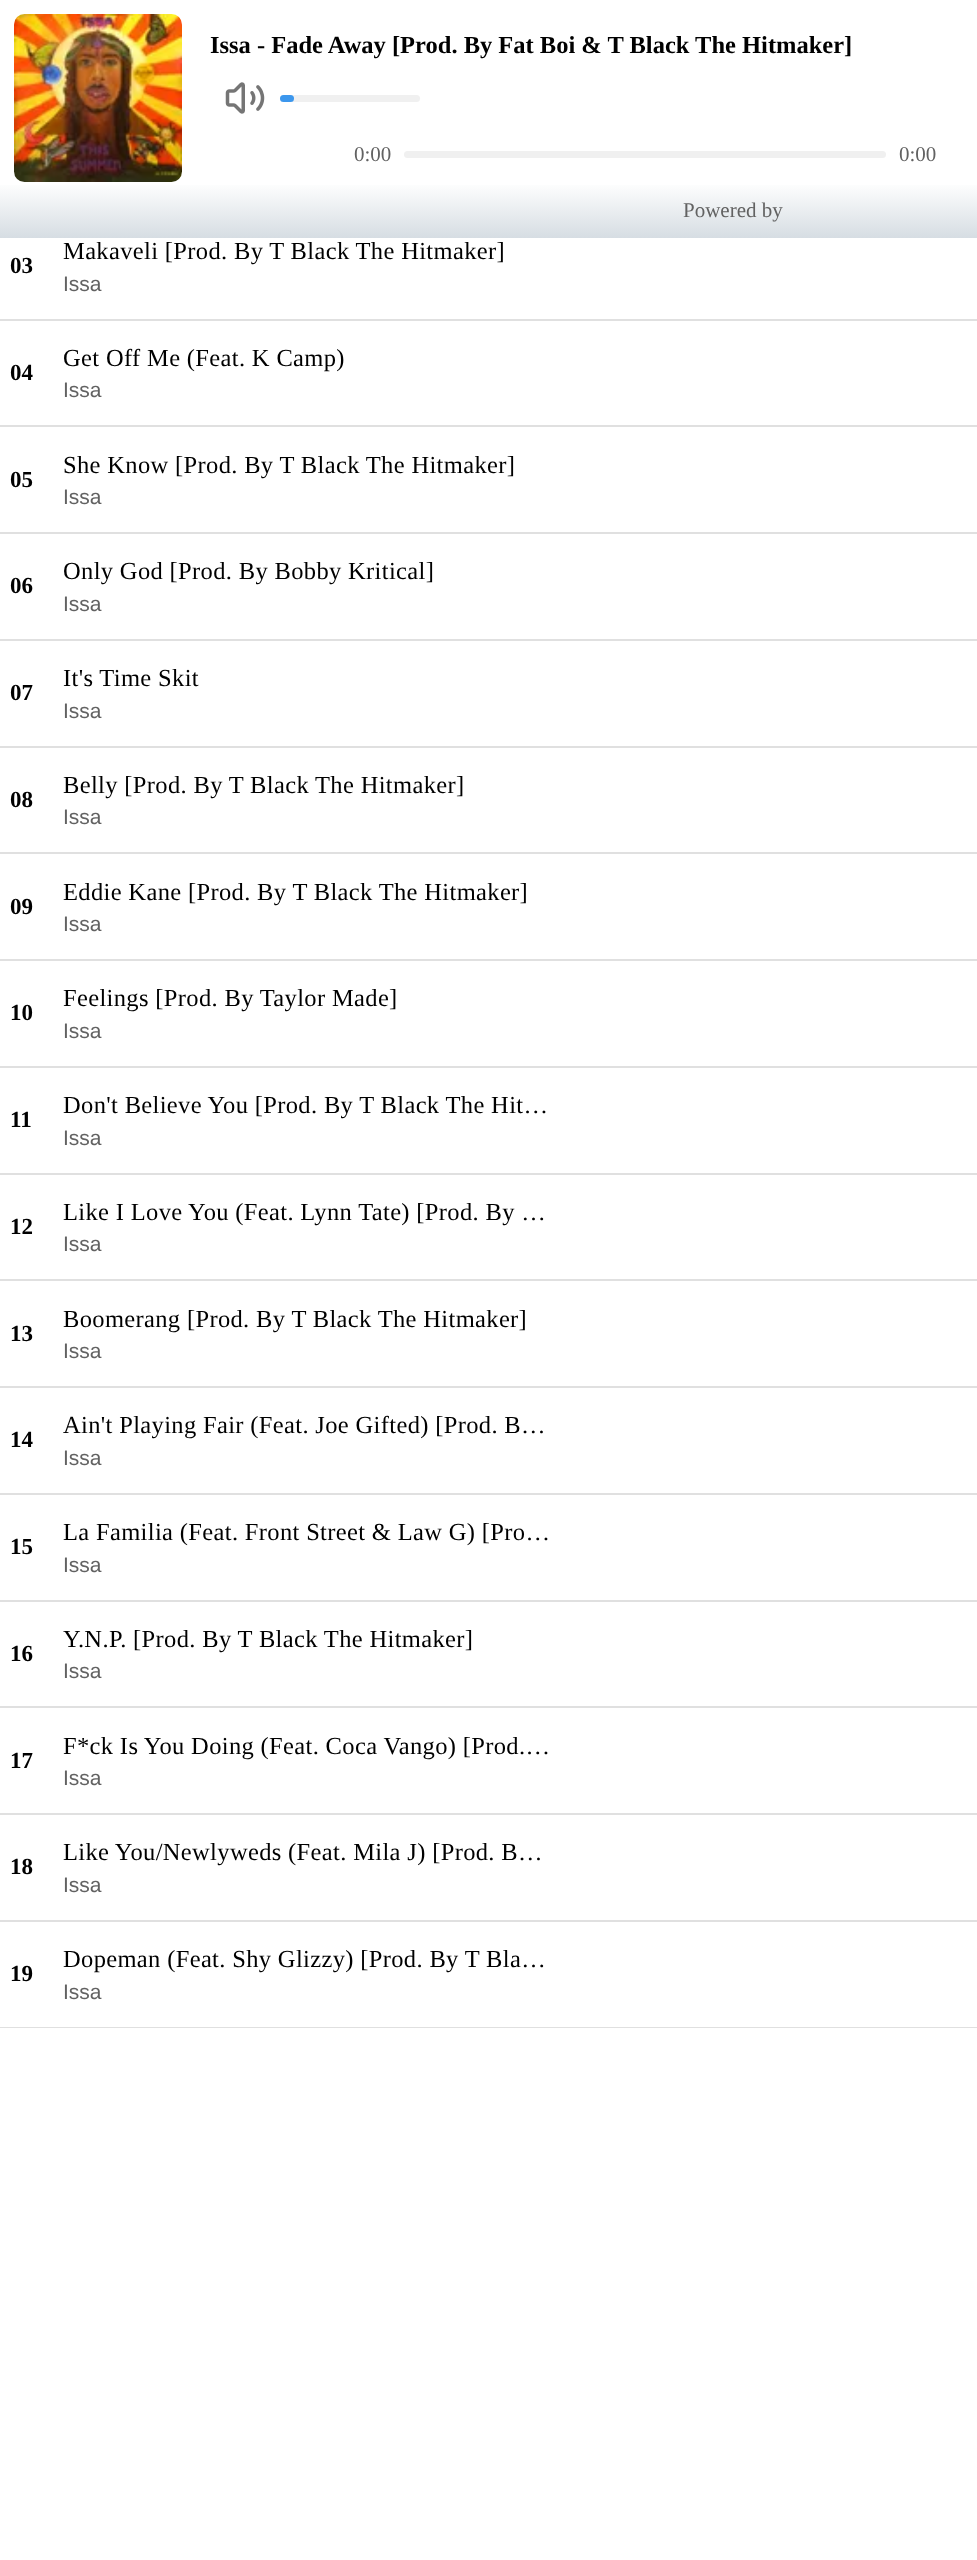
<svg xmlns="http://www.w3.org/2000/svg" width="977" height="2560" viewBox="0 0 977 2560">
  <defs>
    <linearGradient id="g1" gradientUnits="userSpaceOnUse" x1="489" y1="182" x2="489" y2="238"><stop offset="0" stop-color="#fff"/><stop offset="1" stop-color="#d6dde3"/></linearGradient>
  </defs>
  <rect width="100%" height="100%" fill="#fff"/>
  <image x="14" y="14" width="168" height="168" href="img/1.png"/>
  <image x="225" y="82" width="40" height="32" href="img/2.png"/>
  <rect x="280" y="95" width="140" height="7" rx="3.5" fill="#f0f0f0"/>
  <rect x="280" y="95" width="14" height="7" rx="3.5" fill="#3c97ed"/>
  <rect x="404" y="151" width="482" height="7" rx="3.5" fill="#f0f0f0"/>
  <path d="M0 185h977v53H0z" fill="url(#g1)"/>
  <path d="M0 319h977v2H0z" fill="#e0e0e0"/>
  <path d="M0 425h977v2H0z" fill="#e0e0e0"/>
  <path d="M0 532h977v2H0z" fill="#e0e0e0"/>
  <path d="M0 639h977v2H0z" fill="#e0e0e0"/>
  <path d="M0 746h977v2H0z" fill="#e0e0e0"/>
  <path d="M0 852h977v2H0z" fill="#e0e0e0"/>
  <path d="M0 959h977v2H0z" fill="#e0e0e0"/>
  <path d="M0 1066h977v2H0z" fill="#e0e0e0"/>
  <path d="M0 1173h977v2H0z" fill="#e0e0e0"/>
  <path d="M0 1279h977v2H0z" fill="#e0e0e0"/>
  <path d="M0 1386h977v2H0z" fill="#e0e0e0"/>
  <path d="M0 1493h977v2H0z" fill="#e0e0e0"/>
  <path d="M0 1600h977v2H0z" fill="#e0e0e0"/>
  <path d="M0 1706h977v2H0z" fill="#e0e0e0"/>
  <path d="M0 1813h977v2H0z" fill="#e0e0e0"/>
  <path d="M0 1920h977v2H0z" fill="#e0e0e0"/>
  <path d="M0 2027h977v1H0z" fill="#e0e0e0"/>
  <text x="210" y="53" font-family="Liberation Serif" font-size="24.5" font-weight="bold" fill="#000">Issa - Fade Away [Prod. By Fat Boi &amp; T Black The Hitmaker]</text>
  <g font-family="Liberation Serif" font-size="21" fill="#626262">
    <text x="354" y="161">0:00</text>
    <text x="899" y="161">0:00</text>
    <text x="683" y="217">Powered by</text>
  </g>
  <text x="10" y="273" font-family="Liberation Serif" font-size="23" font-weight="bold" fill="#000">03</text>
  <text x="63" y="259" font-family="Liberation Serif" font-size="24.5" letter-spacing="0.35" fill="#000">Makaveli [Prod. By T Black The Hitmaker]</text>
  <text x="63" y="291" font-family="Liberation Sans" font-size="21" fill="#626262">Issa</text>
  <text x="10" y="380" font-family="Liberation Serif" font-size="23" font-weight="bold" fill="#000">04</text>
  <text x="63" y="366" font-family="Liberation Serif" font-size="24.5" letter-spacing="0.35" fill="#000">Get Off Me (Feat. K Camp)</text>
  <text x="63" y="397" font-family="Liberation Sans" font-size="21" fill="#626262">Issa</text>
  <text x="10" y="487" font-family="Liberation Serif" font-size="23" font-weight="bold" fill="#000">05</text>
  <text x="63" y="473" font-family="Liberation Serif" font-size="24.5" letter-spacing="0.35" fill="#000">She Know [Prod. By T Black The Hitmaker]</text>
  <text x="63" y="504" font-family="Liberation Sans" font-size="21" fill="#626262">Issa</text>
  <text x="10" y="593" font-family="Liberation Serif" font-size="23" font-weight="bold" fill="#000">06</text>
  <text x="63" y="579" font-family="Liberation Serif" font-size="24.5" letter-spacing="0.35" fill="#000">Only God [Prod. By Bobby Kritical]</text>
  <text x="63" y="611" font-family="Liberation Sans" font-size="21" fill="#626262">Issa</text>
  <text x="10" y="700" font-family="Liberation Serif" font-size="23" font-weight="bold" fill="#000">07</text>
  <text x="63" y="686" font-family="Liberation Serif" font-size="24.5" letter-spacing="0.35" fill="#000">It's Time Skit</text>
  <text x="63" y="718" font-family="Liberation Sans" font-size="21" fill="#626262">Issa</text>
  <text x="10" y="807" font-family="Liberation Serif" font-size="23" font-weight="bold" fill="#000">08</text>
  <text x="63" y="793" font-family="Liberation Serif" font-size="24.5" letter-spacing="0.35" fill="#000">Belly [Prod. By T Black The Hitmaker]</text>
  <text x="63" y="824" font-family="Liberation Sans" font-size="21" fill="#626262">Issa</text>
  <text x="10" y="914" font-family="Liberation Serif" font-size="23" font-weight="bold" fill="#000">09</text>
  <text x="63" y="900" font-family="Liberation Serif" font-size="24.5" letter-spacing="0.35" fill="#000">Eddie Kane [Prod. By T Black The Hitmaker]</text>
  <text x="63" y="931" font-family="Liberation Sans" font-size="21" fill="#626262">Issa</text>
  <text x="10" y="1020" font-family="Liberation Serif" font-size="23" font-weight="bold" fill="#000">10</text>
  <text x="63" y="1006" font-family="Liberation Serif" font-size="24.5" letter-spacing="0.35" fill="#000">Feelings [Prod. By Taylor Made]</text>
  <text x="63" y="1038" font-family="Liberation Sans" font-size="21" fill="#626262">Issa</text>
  <text x="10" y="1127" font-family="Liberation Serif" font-size="23" font-weight="bold" fill="#000">11</text>
  <text x="63" y="1113" font-family="Liberation Serif" font-size="24.5" letter-spacing="0.35" fill="#000">Don't Believe You [Prod. By T Black The Hit…</text>
  <text x="63" y="1145" font-family="Liberation Sans" font-size="21" fill="#626262">Issa</text>
  <text x="10" y="1234" font-family="Liberation Serif" font-size="23" font-weight="bold" fill="#000">12</text>
  <text x="63" y="1220" font-family="Liberation Serif" font-size="24.5" letter-spacing="0.35" fill="#000">Like I Love You (Feat. Lynn Tate) [Prod. By …</text>
  <text x="63" y="1251" font-family="Liberation Sans" font-size="21" fill="#626262">Issa</text>
  <text x="10" y="1341" font-family="Liberation Serif" font-size="23" font-weight="bold" fill="#000">13</text>
  <text x="63" y="1327" font-family="Liberation Serif" font-size="24.5" letter-spacing="0.35" fill="#000">Boomerang [Prod. By T Black The Hitmaker]</text>
  <text x="63" y="1358" font-family="Liberation Sans" font-size="21" fill="#626262">Issa</text>
  <text x="10" y="1447" font-family="Liberation Serif" font-size="23" font-weight="bold" fill="#000">14</text>
  <text x="63" y="1433" font-family="Liberation Serif" font-size="24.5" letter-spacing="0.35" fill="#000">Ain't Playing Fair (Feat. Joe Gifted) [Prod. B…</text>
  <text x="63" y="1465" font-family="Liberation Sans" font-size="21" fill="#626262">Issa</text>
  <text x="10" y="1554" font-family="Liberation Serif" font-size="23" font-weight="bold" fill="#000">15</text>
  <text x="63" y="1540" font-family="Liberation Serif" font-size="24.5" letter-spacing="0.35" fill="#000">La Familia (Feat. Front Street &amp; Law G) [Pro…</text>
  <text x="63" y="1572" font-family="Liberation Sans" font-size="21" fill="#626262">Issa</text>
  <text x="10" y="1661" font-family="Liberation Serif" font-size="23" font-weight="bold" fill="#000">16</text>
  <text x="63" y="1647" font-family="Liberation Serif" font-size="24.5" letter-spacing="0.35" fill="#000">Y.N.P. [Prod. By T Black The Hitmaker]</text>
  <text x="63" y="1678" font-family="Liberation Sans" font-size="21" fill="#626262">Issa</text>
  <text x="10" y="1768" font-family="Liberation Serif" font-size="23" font-weight="bold" fill="#000">17</text>
  <text x="63" y="1754" font-family="Liberation Serif" font-size="24.5" letter-spacing="0.35" fill="#000">F*ck Is You Doing (Feat. Coca Vango) [Prod.…</text>
  <text x="63" y="1785" font-family="Liberation Sans" font-size="21" fill="#626262">Issa</text>
  <text x="10" y="1874" font-family="Liberation Serif" font-size="23" font-weight="bold" fill="#000">18</text>
  <text x="63" y="1860" font-family="Liberation Serif" font-size="24.5" letter-spacing="0.35" fill="#000">Like You/Newlyweds (Feat. Mila J) [Prod. B…</text>
  <text x="63" y="1892" font-family="Liberation Sans" font-size="21" fill="#626262">Issa</text>
  <text x="10" y="1981" font-family="Liberation Serif" font-size="23" font-weight="bold" fill="#000">19</text>
  <text x="63" y="1967" font-family="Liberation Serif" font-size="24.5" letter-spacing="0.35" fill="#000">Dopeman (Feat. Shy Glizzy) [Prod. By T Bla…</text>
  <text x="63" y="1999" font-family="Liberation Sans" font-size="21" fill="#626262">Issa</text>
</svg>
